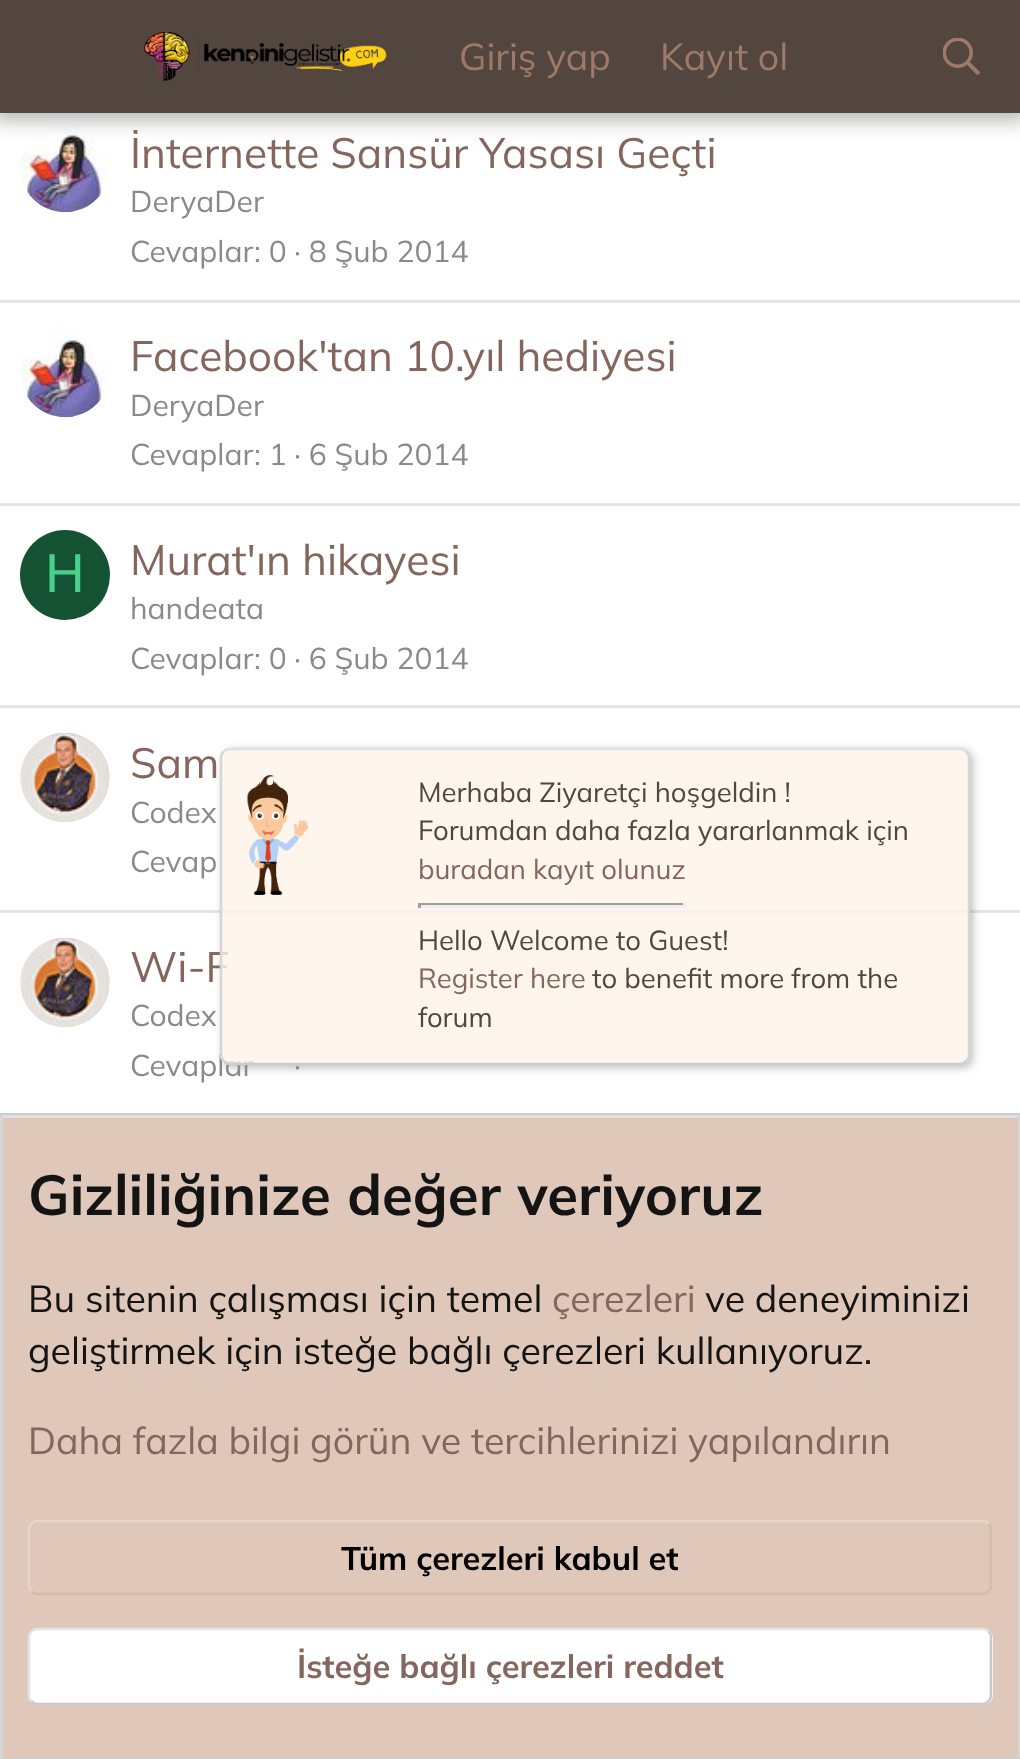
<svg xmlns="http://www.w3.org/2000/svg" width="1020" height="1759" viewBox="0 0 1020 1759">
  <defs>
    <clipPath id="clip1"><path d="M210 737H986V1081H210ZM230 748H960C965.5 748 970 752.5 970 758V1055C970 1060.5 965.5 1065 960 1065H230C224.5 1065 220 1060.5 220 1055V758C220 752.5 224.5 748 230 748Z" clip-rule="evenodd"/></clipPath>
  </defs>
  <rect width="100%" height="100%" fill="#fff"/>
  <image x="20" y="123" width="90" height="90" href="img/3.png"/>
  <path d="M-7 -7h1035v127H-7z" fill="#0000004d" filter="blur(10px)"/>
  <path d="M0 0h1020v113H0z" fill="#53463f"/>
  <image x="144" y="31" width="243" height="51" href="img/1.png"/>
  <image x="943" y="38" width="37" height="37" href="img/2.png"/>
  <path d="M0 1113h1020v2H0z" fill="#ccc"/>
  <path d="M0 300h1020v3H0z" fill="#e5e5e5"/>
  <image x="20" y="328" width="90" height="90" href="img/4.png"/>
  <path d="M0 503h1020v3H0z" fill="#e5e5e5"/>
  <circle cx="65" cy="575" r="45" fill="#145233"/>
  <path d="M0 705h1020v3H0z" fill="#e5e5e5"/>
  <image x="20" y="733" width="90" height="90" href="img/5.png"/>
  <path d="M0 910h1020v3H0z" fill="#e5e5e5"/>
  <image x="20" y="938" width="90" height="90" href="img/6.png"/>
  <g clip-path="url(#clip1)">
    <rect x="223" y="750" width="750" height="318" rx="10" fill="#00000040" filter="blur(4px)"/>
  </g>
  <path d="M3 1118h1015v640H3z" fill="#dfc8b9"/>
  <path d="M0 1115h1020v3H0z" fill="#e0e0e0"/>
  <path d="M1018 1115h2v644H1018z" fill="#d6d6d6"/>
  <path d="M0 1758h1020v1H0z" fill="#ccc"/>
  <path d="M0 1115h3v644H0z" fill="#d6d6d6"/>
  <path d="M988.5 1524C990.5 1525.5 991 1527.5 991 1530V1585C991 1587.5 990.5 1589.5 988.5 1591C987 1593 985 1594 982.5 1594H37.5C35 1594 33 1593 31.5 1591" fill="none" stroke="#d7baa8" stroke-width="2.5"/>
  <path d="M31.5 1591C29.5 1589.5 29 1587.5 29 1585V1530C29 1527.5 29.5 1525.5 31.5 1524C33 1522 35 1521 37.5 1521H982.5C985 1521 987 1522 988.5 1524" fill="none" stroke="#e7d6cb" stroke-width="2.5"/>
  <rect x="28" y="1628" width="965" height="77" rx="10" fill="#fff"/>
  <path d="M988.5 1631.5C990.5 1633 991 1635 991 1637.5V1695C991 1697.5 990.5 1699.5 988.5 1701C987 1703 985 1704 982.5 1704H37.5C35 1704 33 1703 31.5 1701" fill="none" stroke="#c9c9c9" stroke-width="2.5"/>
  <path d="M31.5 1701C29.5 1699.5 29 1697.5 29 1695V1637.5C29 1635 29.5 1633 31.5 1631.5C33 1629.5 35 1629 37.5 1629H982.5C985 1629 987 1629.5 988.5 1631.5" fill="none" stroke="#e3e3e3" stroke-width="2.5"/>
  <g font-family="Mulish" font-size="37.5" fill="#9e7a68">
    <text x="459" y="70">Giriş yap</text>
    <text x="660" y="70">Kayıt ol</text>
  </g>
  <text x="130" y="168" font-family="Mulish" font-size="42.5" fill="#85665c">İnternette Sansür Yasası Geçti</text>
  <g font-family="Mulish" font-size="30" fill="#8a8a8a">
    <text x="130" y="212">DeryaDer</text>
    <text x="130" y="262">Cevaplar</text>
    <text x="254" y="262">: 0</text>
    <text x="294" y="262">· 8 Şub 2014</text>
  </g>
  <text x="130" y="371" font-family="Mulish" font-size="42.5" fill="#85665c">Facebook'tan 10.yıl hediyesi</text>
  <g font-family="Mulish" font-size="30" fill="#8a8a8a">
    <text x="130" y="416">DeryaDer</text>
    <text x="130" y="465">Cevaplar</text>
    <text x="254" y="465">: 1</text>
    <text x="294" y="465">· 6 Şub 2014</text>
  </g>
  <text x="45" y="592" font-family="Liberation Sans" font-size="55" fill="#47d18c">H</text>
  <text x="130" y="575" font-family="Mulish" font-size="42.5" fill="#85665c">Murat'ın hikayesi</text>
  <g font-family="Mulish" font-size="30" fill="#8a8a8a">
    <text x="130" y="619">handeata</text>
    <text x="130" y="669">Cevaplar</text>
    <text x="254" y="669">: 0</text>
    <text x="294" y="669">· 6 Şub 2014</text>
  </g>
  <text x="130" y="778" font-family="Mulish" font-size="42.5" fill="#85665c">Sam</text>
  <g font-family="Mulish" font-size="30" fill="#8a8a8a">
    <text x="130" y="823">Codex</text>
    <text x="130" y="872">Cevap</text>
  </g>
  <text x="130" y="982" font-family="Mulish" font-size="42.5" fill="#85665c">Wi-F</text>
  <g font-family="Mulish" font-size="30" fill="#8a8a8a">
    <text x="130" y="1026">Codex</text>
    <text x="130" y="1076">Cevaplar</text>
    <text x="294" y="1076">·</text>
  </g>
  <rect x="220" y="748" width="750" height="317" rx="10" fill="#fef4e7cc"/>
  <path d="M224 751.5C225.5 749.5 227.5 749 230 749H960C962.5 749 964.5 749.5 966 751.5" fill="none" stroke="#e0e0e0" stroke-width="2.5"/>
  <path d="M966 751.5C968 753 969 755 969 757.5V1055C969 1057.5 968 1059.5 966 1061" fill="none" stroke="#d6d6d6" stroke-width="2.5"/>
  <path d="M966 1061C964.5 1063 962.5 1064 960 1064H230C227.5 1064 225.5 1063 224 1061" fill="none" stroke="#ccc" stroke-width="2.5"/>
  <path d="M224 1061C222 1059.5 221 1057.5 221 1055V757.5C221 755 222 753 224 751.5" fill="none" stroke="#d6d6d6" stroke-width="2.5"/>
  <image x="247" y="775" width="62" height="120" href="img/7.png"/>
  <g font-family="Mulish" font-size="27.5" fill="#53463f">
    <text x="418" y="802">Merhaba Ziyaretçi hoşgeldin !</text>
    <text x="418" y="840">Forumdan daha fazla yararlanmak için</text>
  </g>
  <text x="418" y="879" font-family="Mulish" font-size="27.5" fill="#85665c">buradan kayıt olunuz</text>
  <path d="M418 903h267v2H418z" fill="#9f9f9f"/>
  <path d="M683 903h3v5H683z" fill="#eee"/>
  <path d="M418 905h267v3H418z" fill="#eee"/>
  <path d="M418 903h3v5H418z" fill="#9f9f9f"/>
  <text x="418" y="950" font-family="Mulish" font-size="27.5" fill="#53463f">Hello Welcome to Guest!</text>
  <text x="418" y="988" font-family="Mulish" font-size="27.5" fill="#85665c">Register here</text>
  <g font-family="Mulish" font-size="27.5" fill="#53463f">
    <text x="592" y="988">to benefit more from the</text>
    <text x="418" y="1027">forum</text>
  </g>
  <text x="28" y="1215" word-spacing="1" font-family="Mulish" font-size="56.25" font-weight="bold" fill="#141414">Gizliliğinize değer veriyoruz</text>
  <text x="28" y="1312" font-family="Mulish" font-size="37.5" fill="#141414">Bu sitenin çalışması için temel</text>
  <text x="552" y="1312" font-family="Mulish" font-size="37.5" fill="#85665c">çerezleri</text>
  <g font-family="Mulish" font-size="37.5" fill="#141414">
    <text x="705" y="1312">ve deneyiminizi</text>
    <text x="28" y="1364">geliştirmek için isteğe bağlı çerezleri kullanıyoruz.</text>
  </g>
  <text x="28" y="1454" font-family="Mulish" font-size="37.5" fill="#85665c">Daha fazla bilgi görün ve tercihlerinizi yapılandırın</text>
  <text x="341" y="1570" font-family="Mulish" font-size="32.5" font-weight="bold" fill="#000">Tüm çerezleri kabul et</text>
  <text x="297" y="1678" font-family="Mulish" font-size="32.5" font-weight="bold" fill="#85665c">İsteğe bağlı çerezleri reddet</text>
</svg>
